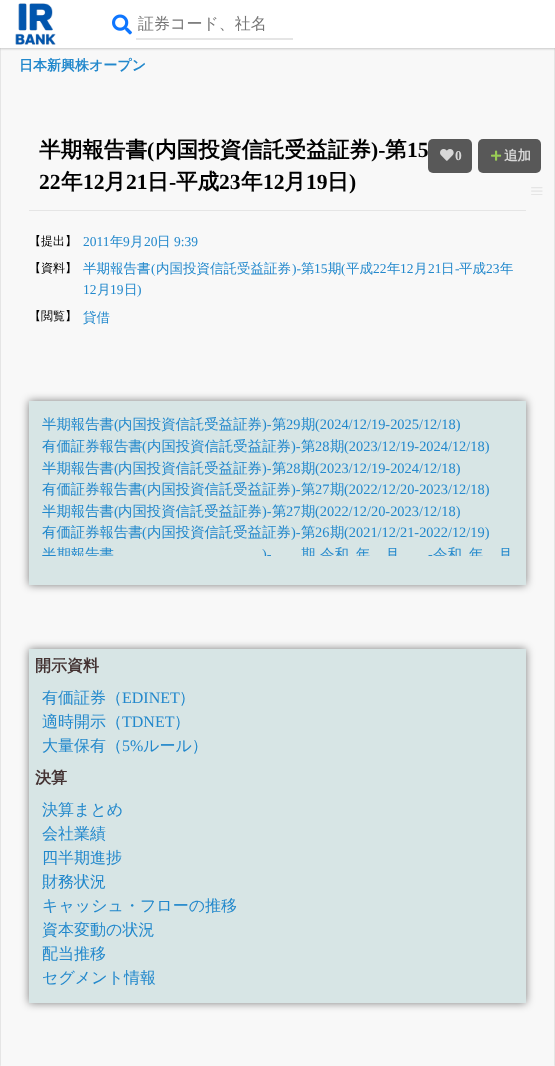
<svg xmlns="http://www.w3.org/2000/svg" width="555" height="1066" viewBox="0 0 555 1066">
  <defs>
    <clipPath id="clip1"><path d="M34 406h487v150H34z"/></clipPath>
  </defs>
  <rect width="100%" height="100%" fill="#f8f8f8"/>
  <path d="M0.5 0.5h554v1065H0.5z" fill="none" stroke="#e5e5e5"/>
  <path d="M0 1h555v48H0z" fill="#00000033" filter="blur(1px)"/>
  <path d="M0 0h555v48H0z" fill="#fff"/>
  <image x="15" y="3" width="41" height="42" href="img/1.png"/>
  <path d="M133 38h160v2H133z" fill="#e5e5e5"/>
  <path d="M133 38h3v2H133z" fill="#fff"/>
  <image x="112" y="14" width="20" height="21" href="img/2.png"/>
  <path d="M29 210h497v1H29z" fill="#e5e5e5"/>
  <path d="M29 401h497v184H29z" fill="#00000080" filter="blur(4px)"/>
  <path d="M29 401h497v184H29z" fill="#d7e5e5"/>
  <path d="M29 649h497v354H29z" fill="#00000080" filter="blur(4px)"/>
  <path d="M29 649h497v354H29z" fill="#d7e5e5"/>
  <path d="M1 1065h553v1H1z" fill="#f8f8f8"/>
  <rect x="428" y="139" width="44" height="34" rx="5" fill="#585858"/>
  <image x="440" y="149" width="14" height="12" href="img/3.png"/>
  <rect x="478" y="139" width="63" height="34" rx="5" fill="#585858"/>
  <image x="491" y="150" width="11" height="11" href="img/4.png"/>
  <text x="138" y="29" font-family="WenQuanYi Zen Hei" font-size="16" font-weight="500" fill="#757575">証券コード、社名</text>
  <text x="19" y="70" font-family="WenQuanYi Zen Hei" font-size="14" font-weight="bold" fill="#28c">日本新興株オープン</text>
  <text x="39" y="157" font-family="WenQuanYi Zen Hei" font-size="21.6" font-weight="bold" fill="#000">半期報告書</text>
  <text x="147" y="157" font-family="Liberation Serif" font-size="21.6" font-weight="bold" fill="#000">(</text>
  <text x="155" y="157" font-family="WenQuanYi Zen Hei" font-size="21.6" font-weight="bold" fill="#000">内国投資信託受益証券</text>
  <text x="371" y="157" font-family="Liberation Serif" font-size="21.6" font-weight="bold" fill="#000">)-</text>
  <text x="385" y="157" font-family="WenQuanYi Zen Hei" font-size="21.6" font-weight="bold" fill="#000">第</text>
  <g font-family="Liberation Serif" font-size="21.6" font-weight="bold" fill="#000">
    <text x="407" y="157">15</text>
    <text x="39" y="189">22</text>
  </g>
  <text x="61" y="189" font-family="WenQuanYi Zen Hei" font-size="21.6" font-weight="bold" fill="#000">年</text>
  <text x="83" y="189" font-family="Liberation Serif" font-size="21.6" font-weight="bold" fill="#000">12</text>
  <text x="104" y="189" font-family="WenQuanYi Zen Hei" font-size="21.6" font-weight="bold" fill="#000">月</text>
  <text x="126" y="189" font-family="Liberation Serif" font-size="21.6" font-weight="bold" fill="#000">21</text>
  <text x="147" y="189" font-family="WenQuanYi Zen Hei" font-size="21.6" font-weight="bold" fill="#000">日</text>
  <text x="169" y="189" font-family="Liberation Serif" font-size="21.6" font-weight="bold" fill="#000">-</text>
  <text x="176" y="189" font-family="WenQuanYi Zen Hei" font-size="21.6" font-weight="bold" fill="#000">平成</text>
  <text x="219" y="189" font-family="Liberation Serif" font-size="21.6" font-weight="bold" fill="#000">23</text>
  <text x="241" y="189" font-family="WenQuanYi Zen Hei" font-size="21.6" font-weight="bold" fill="#000">年</text>
  <text x="263" y="189" font-family="Liberation Serif" font-size="21.6" font-weight="bold" fill="#000">12</text>
  <text x="284" y="189" font-family="WenQuanYi Zen Hei" font-size="21.6" font-weight="bold" fill="#000">月</text>
  <text x="306" y="189" font-family="Liberation Serif" font-size="21.6" font-weight="bold" fill="#000">19</text>
  <text x="327" y="189" font-family="WenQuanYi Zen Hei" font-size="21.6" font-weight="bold" fill="#000">日</text>
  <text x="349" y="189" font-family="Liberation Serif" font-size="21.6" font-weight="bold" fill="#000">)</text>
  <text x="29" y="245" font-family="WenQuanYi Zen Hei" font-size="12" font-weight="500" fill="#000">【提出】</text>
  <text x="83" y="246" font-family="Liberation Serif" font-size="13.5" fill="#28c">2011</text>
  <text x="110" y="246" font-family="WenQuanYi Zen Hei" font-size="13.5" font-weight="500" fill="#28c">年</text>
  <text x="123" y="246" font-family="Liberation Serif" font-size="13.5" fill="#28c">9</text>
  <text x="130" y="246" font-family="WenQuanYi Zen Hei" font-size="13.5" font-weight="500" fill="#28c">月</text>
  <text x="144" y="246" font-family="Liberation Serif" font-size="13.5" fill="#28c">20</text>
  <text x="157" y="246" font-family="WenQuanYi Zen Hei" font-size="13.5" font-weight="500" fill="#28c">日</text>
  <text x="174" y="246" font-family="Liberation Serif" font-size="13.5" fill="#28c">9:39</text>
  <text x="29" y="272" font-family="WenQuanYi Zen Hei" font-size="12" font-weight="500" fill="#000">【資料】</text>
  <text x="83" y="273" font-family="WenQuanYi Zen Hei" font-size="13.5" font-weight="500" fill="#28c">半期報告書</text>
  <text x="151" y="273" font-family="Liberation Serif" font-size="13.5" fill="#28c">(</text>
  <text x="156" y="273" font-family="WenQuanYi Zen Hei" font-size="13.5" font-weight="500" fill="#28c">内国投資信託受益証券</text>
  <text x="292" y="273" font-family="Liberation Serif" font-size="13.5" fill="#28c">)-</text>
  <text x="301" y="273" font-family="WenQuanYi Zen Hei" font-size="13.5" font-weight="500" fill="#28c">第</text>
  <text x="314" y="273" font-family="Liberation Serif" font-size="13.5" fill="#28c">15</text>
  <text x="328" y="273" font-family="WenQuanYi Zen Hei" font-size="13.5" font-weight="500" fill="#28c">期</text>
  <text x="341" y="273" font-family="Liberation Serif" font-size="13.5" fill="#28c">(</text>
  <text x="346" y="273" font-family="WenQuanYi Zen Hei" font-size="13.5" font-weight="500" fill="#28c">平成</text>
  <text x="373" y="273" font-family="Liberation Serif" font-size="13.5" fill="#28c">22</text>
  <text x="387" y="273" font-family="WenQuanYi Zen Hei" font-size="13.5" font-weight="500" fill="#28c">年</text>
  <text x="400" y="273" font-family="Liberation Serif" font-size="13.5" fill="#28c">12</text>
  <text x="414" y="273" font-family="WenQuanYi Zen Hei" font-size="13.5" font-weight="500" fill="#28c">月</text>
  <text x="428" y="273" font-family="Liberation Serif" font-size="13.5" fill="#28c">21</text>
  <text x="441" y="273" font-family="WenQuanYi Zen Hei" font-size="13.5" font-weight="500" fill="#28c">日</text>
  <text x="455" y="273" font-family="Liberation Serif" font-size="13.5" fill="#28c">-</text>
  <text x="459" y="273" font-family="WenQuanYi Zen Hei" font-size="13.5" font-weight="500" fill="#28c">平成</text>
  <text x="486" y="273" font-family="Liberation Serif" font-size="13.5" fill="#28c">23</text>
  <text x="500" y="273" font-family="WenQuanYi Zen Hei" font-size="13.5" font-weight="500" fill="#28c">年</text>
  <text x="83" y="294" font-family="Liberation Serif" font-size="13.5" fill="#28c">12</text>
  <text x="97" y="294" font-family="WenQuanYi Zen Hei" font-size="13.5" font-weight="500" fill="#28c">月</text>
  <text x="110" y="294" font-family="Liberation Serif" font-size="13.5" fill="#28c">19</text>
  <text x="124" y="294" font-family="WenQuanYi Zen Hei" font-size="13.5" font-weight="500" fill="#28c">日</text>
  <text x="137" y="294" font-family="Liberation Serif" font-size="13.5" fill="#28c">)</text>
  <text x="29" y="320" font-family="WenQuanYi Zen Hei" font-size="12" font-weight="500" fill="#000">【閲覧】</text>
  <text x="83" y="322" font-family="WenQuanYi Zen Hei" font-size="13.5" font-weight="500" fill="#28c">貸借</text>
  <text x="42" y="429" font-family="WenQuanYi Zen Hei" font-size="14.4" font-weight="500" fill="#28c">半期報告書</text>
  <text x="114" y="429" font-family="Liberation Serif" font-size="14.4" fill="#28c">(</text>
  <text x="118" y="429" font-family="WenQuanYi Zen Hei" font-size="14.4" font-weight="500" fill="#28c">内国投資信託受益証券</text>
  <text x="262" y="429" font-family="Liberation Serif" font-size="14.4" fill="#28c">)-</text>
  <text x="272" y="429" font-family="WenQuanYi Zen Hei" font-size="14.4" font-weight="500" fill="#28c">第</text>
  <text x="286" y="429" font-family="Liberation Serif" font-size="14.4" fill="#28c">29</text>
  <text x="301" y="429" font-family="WenQuanYi Zen Hei" font-size="14.4" font-weight="500" fill="#28c">期</text>
  <text x="315" y="429" font-family="Liberation Serif" font-size="14.4" fill="#28c">(2024/12/19-2025/12/18)</text>
  <text x="42" y="451" font-family="WenQuanYi Zen Hei" font-size="14.4" font-weight="500" fill="#28c">有価証券報告書</text>
  <text x="142" y="451" font-family="Liberation Serif" font-size="14.4" fill="#28c">(</text>
  <text x="147" y="451" font-family="WenQuanYi Zen Hei" font-size="14.4" font-weight="500" fill="#28c">内国投資信託受益証券</text>
  <text x="291" y="451" font-family="Liberation Serif" font-size="14.4" fill="#28c">)-</text>
  <text x="301" y="451" font-family="WenQuanYi Zen Hei" font-size="14.4" font-weight="500" fill="#28c">第</text>
  <text x="315" y="451" font-family="Liberation Serif" font-size="14.4" fill="#28c">28</text>
  <text x="330" y="451" font-family="WenQuanYi Zen Hei" font-size="14.4" font-weight="500" fill="#28c">期</text>
  <text x="344" y="451" font-family="Liberation Serif" font-size="14.4" fill="#28c">(2023/12/19-2024/12/18)</text>
  <text x="42" y="473" font-family="WenQuanYi Zen Hei" font-size="14.4" font-weight="500" fill="#28c">半期報告書</text>
  <text x="114" y="473" font-family="Liberation Serif" font-size="14.4" fill="#28c">(</text>
  <text x="118" y="473" font-family="WenQuanYi Zen Hei" font-size="14.4" font-weight="500" fill="#28c">内国投資信託受益証券</text>
  <text x="262" y="473" font-family="Liberation Serif" font-size="14.4" fill="#28c">)-</text>
  <text x="272" y="473" font-family="WenQuanYi Zen Hei" font-size="14.4" font-weight="500" fill="#28c">第</text>
  <text x="286" y="473" font-family="Liberation Serif" font-size="14.4" fill="#28c">28</text>
  <text x="301" y="473" font-family="WenQuanYi Zen Hei" font-size="14.4" font-weight="500" fill="#28c">期</text>
  <text x="315" y="473" font-family="Liberation Serif" font-size="14.4" fill="#28c">(2023/12/19-2024/12/18)</text>
  <text x="42" y="494" font-family="WenQuanYi Zen Hei" font-size="14.4" font-weight="500" fill="#28c">有価証券報告書</text>
  <text x="142" y="494" font-family="Liberation Serif" font-size="14.4" fill="#28c">(</text>
  <text x="147" y="494" font-family="WenQuanYi Zen Hei" font-size="14.4" font-weight="500" fill="#28c">内国投資信託受益証券</text>
  <text x="291" y="494" font-family="Liberation Serif" font-size="14.4" fill="#28c">)-</text>
  <text x="301" y="494" font-family="WenQuanYi Zen Hei" font-size="14.4" font-weight="500" fill="#28c">第</text>
  <text x="315" y="494" font-family="Liberation Serif" font-size="14.4" fill="#28c">27</text>
  <text x="330" y="494" font-family="WenQuanYi Zen Hei" font-size="14.4" font-weight="500" fill="#28c">期</text>
  <text x="344" y="494" font-family="Liberation Serif" font-size="14.4" fill="#28c">(2022/12/20-2023/12/18)</text>
  <text x="42" y="516" font-family="WenQuanYi Zen Hei" font-size="14.4" font-weight="500" fill="#28c">半期報告書</text>
  <text x="114" y="516" font-family="Liberation Serif" font-size="14.4" fill="#28c">(</text>
  <text x="118" y="516" font-family="WenQuanYi Zen Hei" font-size="14.4" font-weight="500" fill="#28c">内国投資信託受益証券</text>
  <text x="262" y="516" font-family="Liberation Serif" font-size="14.4" fill="#28c">)-</text>
  <text x="272" y="516" font-family="WenQuanYi Zen Hei" font-size="14.4" font-weight="500" fill="#28c">第</text>
  <text x="286" y="516" font-family="Liberation Serif" font-size="14.4" fill="#28c">27</text>
  <text x="301" y="516" font-family="WenQuanYi Zen Hei" font-size="14.4" font-weight="500" fill="#28c">期</text>
  <text x="315" y="516" font-family="Liberation Serif" font-size="14.4" fill="#28c">(2022/12/20-2023/12/18)</text>
  <text x="42" y="537" font-family="WenQuanYi Zen Hei" font-size="14.4" font-weight="500" fill="#28c">有価証券報告書</text>
  <text x="142" y="537" font-family="Liberation Serif" font-size="14.4" fill="#28c">(</text>
  <text x="147" y="537" font-family="WenQuanYi Zen Hei" font-size="14.4" font-weight="500" fill="#28c">内国投資信託受益証券</text>
  <text x="291" y="537" font-family="Liberation Serif" font-size="14.4" fill="#28c">)-</text>
  <text x="301" y="537" font-family="WenQuanYi Zen Hei" font-size="14.4" font-weight="500" fill="#28c">第</text>
  <text x="315" y="537" font-family="Liberation Serif" font-size="14.4" fill="#28c">26</text>
  <text x="330" y="537" font-family="WenQuanYi Zen Hei" font-size="14.4" font-weight="500" fill="#28c">期</text>
  <text x="344" y="537" font-family="Liberation Serif" font-size="14.4" fill="#28c">(2021/12/21-2022/12/19)</text>
  <g clip-path="url(#clip1)">
    <text x="42" y="559" font-family="WenQuanYi Zen Hei" font-size="14.4" font-weight="500" fill="#28c">半期報告書</text>
    <text x="262" y="559" font-family="Liberation Serif" font-size="14.4" fill="#28c">)-</text>
    <g font-family="WenQuanYi Zen Hei" font-size="14.4" font-weight="500" fill="#28c">
      <text x="301" y="559">期</text>
      <text x="320" y="559">令和</text>
      <text x="356" y="559">年</text>
      <text x="385" y="559">月</text>
    </g>
    <text x="428" y="559" font-family="Liberation Serif" font-size="14.4" fill="#28c">-</text>
    <g font-family="WenQuanYi Zen Hei" font-size="14.4" font-weight="500" fill="#28c">
      <text x="433" y="559">令和</text>
      <text x="469" y="559">年</text>
      <text x="498" y="559">月</text>
    </g>
  </g>
  <text x="35" y="671" font-family="WenQuanYi Zen Hei" font-size="16" font-weight="bold" fill="#433">開示資料</text>
  <text x="42" y="703" font-family="WenQuanYi Zen Hei" font-size="16" font-weight="500" fill="#28c">有価証券（</text>
  <text x="122" y="703" font-family="Liberation Serif" font-size="16" fill="#28c">EDINET</text>
  <g font-family="WenQuanYi Zen Hei" font-size="16" font-weight="500" fill="#28c">
    <text x="179" y="703">）</text>
    <text x="42" y="727">適時開示（</text>
  </g>
  <text x="122" y="727" font-family="Liberation Serif" font-size="16" fill="#28c">TDNET</text>
  <g font-family="WenQuanYi Zen Hei" font-size="16" font-weight="500" fill="#28c">
    <text x="174" y="727">）</text>
    <text x="42" y="751">大量保有（</text>
  </g>
  <text x="122" y="751" font-family="Liberation Serif" font-size="16" fill="#28c">5%</text>
  <text x="143" y="751" font-family="WenQuanYi Zen Hei" font-size="16" font-weight="500" fill="#28c">ルール）</text>
  <text x="35" y="783" font-family="WenQuanYi Zen Hei" font-size="16" font-weight="bold" fill="#433">決算</text>
  <g font-family="WenQuanYi Zen Hei" font-size="16" font-weight="500" fill="#28c">
    <text x="42" y="815">決算まとめ</text>
    <text x="42" y="839">会社業績</text>
    <text x="42" y="863">四半期進捗</text>
    <text x="42" y="887">財務状況</text>
    <text x="42" y="911">キャッシュ・フローの推移</text>
    <text x="42" y="935">資本変動の状況</text>
    <text x="42" y="959">配当推移</text>
    <text x="42" y="983">セグメント情報</text>
  </g>
  <text x="455" y="160" font-family="Liberation Serif" font-size="13.5" font-weight="bold" fill="#d8d8d8">0</text>
  <text x="504" y="160" font-family="WenQuanYi Zen Hei" font-size="13.5" font-weight="bold" fill="#d8d8d8">追加</text>
  <text x="530" y="199" font-family="Liberation Serif" font-size="24" fill="#e5e5e5">≡</text>
</svg>
